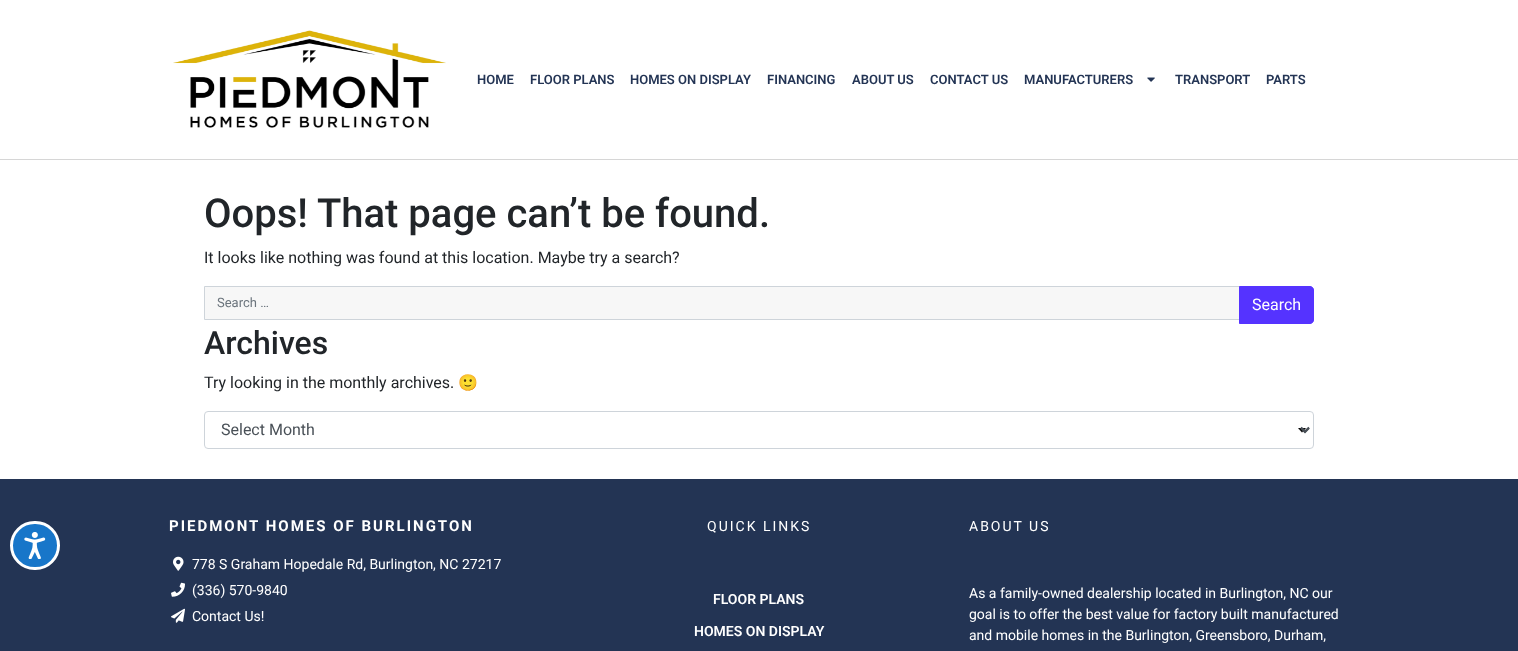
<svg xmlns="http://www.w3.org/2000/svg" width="1518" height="651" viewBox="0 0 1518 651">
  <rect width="100%" height="100%" fill="#fff"/>
  <path d="M0 159h1518v1H0z" fill="#d6d6d6"/>
  <image x="173" y="30" width="273" height="98" href="img/1.png"/>
  <image x="1147" y="77" width="8" height="5" href="img/2.png"/>
  <path d="M204.5 286.5h1035v33H204.5z" fill="#f7f7f7" stroke="#ced4da"/>
  <path d="M1239.5 286.5H1310C1312 286.5 1313.5 288 1313.5 290V320C1313.5 322 1312 323.5 1310 323.5H1239.5Z" fill="#53f" stroke="#53f"/>
  <image x="1298" y="427" width="12" height="7" href="img/3.png"/>
  <rect x="204.5" y="411.5" width="1109" height="37" rx="3.5" fill="none" stroke="#ced4da"/>
  <path d="M1301 427.5L1305 431.5L1309 427.5" fill="none" stroke="#495057" stroke-width="2"/>
  <path d="M0 479h1518v172H0z" fill="#233454"/>
  <rect x="11.5" y="522.5" width="47" height="46" rx="23" fill="#1876c9" stroke="#fff" stroke-width="3"/>
  <image x="24" y="532" width="22" height="27" href="img/4.png"/>
  <image x="173" y="556" width="11" height="15" href="img/5.png"/>
  <image x="171" y="582" width="14" height="15" href="img/6.png"/>
  <image x="171" y="608" width="14" height="15" href="img/7.png"/>
  <g font-family="Roboto" font-size="13" font-weight="600" fill="#233454">
    <text x="477" y="84">HOME</text>
    <text x="530" y="84">FLOOR PLANS</text>
    <text x="630" y="84">HOMES ON DISPLAY</text>
    <text x="767" y="84">FINANCING</text>
    <text x="852" y="84">ABOUT US</text>
    <text x="930" y="84">CONTACT US</text>
    <text x="1024" y="84">MANUFACTURERS</text>
    <text x="1175" y="84">TRANSPORT</text>
    <text x="1266" y="84">PARTS</text>
  </g>
  <text x="204" y="227" font-family="Roboto" font-size="40" font-weight="500" fill="#212529">Oops! That page can’t be found.</text>
  <text x="204" y="263" font-family="Roboto" font-size="16" fill="#212529">It looks like nothing was found at this location. Maybe try a search?</text>
  <text x="217" y="307" font-family="Roboto" font-size="13" fill="#6c757d">Search …</text>
  <text x="1252" y="310" font-family="Roboto" font-size="16" fill="#fff">Search</text>
  <text x="204" y="354" font-family="Roboto" font-size="32" font-weight="500" fill="#212529">Archives</text>
  <text x="204" y="388" font-family="Roboto" font-size="16" fill="#212529">Try looking in the monthly archives.</text>
  <text x="458" y="388" font-family="Noto Color Emoji" font-size="16" fill="#212529">🙂</text>
  <text x="221" y="435" font-family="Roboto" font-size="16" fill="#495057">Select Month</text>
  <text x="169" y="531" font-family="Roboto" font-size="15" font-weight="bold" letter-spacing="2" fill="#fff">PIEDMONT HOMES OF BURLINGTON</text>
  <g font-family="Roboto" font-size="14" fill="#fff">
    <text x="192" y="569">778 S Graham Hopedale Rd, Burlington, NC 27217</text>
    <text x="192" y="595">(336) 570-9840</text>
    <text x="192" y="621">Contact Us!</text>
  </g>
  <text x="707" y="531" font-family="Roboto" font-size="14" letter-spacing="2" fill="#fff">QUICK LINKS</text>
  <g font-family="Roboto" font-size="14" font-weight="600" fill="#fff">
    <text x="713" y="604">FLOOR PLANS</text>
    <text x="694" y="636">HOMES ON DISPLAY</text>
  </g>
  <text x="969" y="531" font-family="Roboto" font-size="14" letter-spacing="2" fill="#fff">ABOUT US</text>
  <g font-family="Roboto" font-size="14" fill="#fff">
    <text x="969" y="598">As a family-owned dealership located in Burlington, NC our</text>
    <text x="969" y="619">goal is to offer the best value for factory built manufactured</text>
    <text x="969" y="640">and mobile homes in the Burlington, Greensboro, Durham,</text>
  </g>
</svg>
